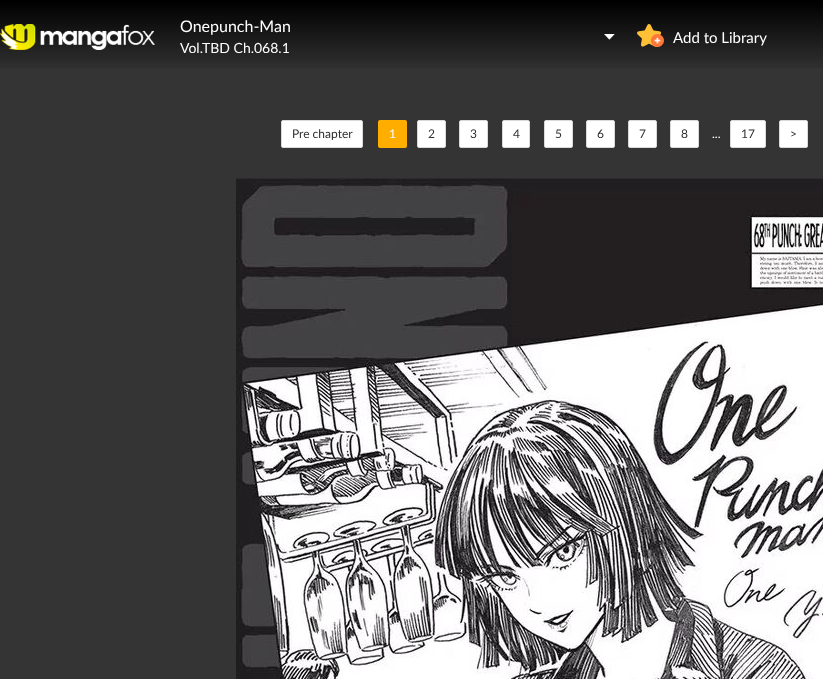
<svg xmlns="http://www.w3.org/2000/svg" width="823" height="679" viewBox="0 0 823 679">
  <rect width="100%" height="100%" fill="#343434"/>
  <image x="0" y="0" width="823" height="68" href="img/1.png"/>
  <image x="0" y="24" width="155" height="26" href="img/2.png"/>
  <image x="604" y="34" width="11" height="6" href="img/3.png"/>
  <image x="637" y="24" width="27" height="24" href="img/4.png"/>
  <rect x="281.5" y="120.5" width="81" height="27" rx="1.5" fill="#fff" stroke="#d9d9d9"/>
  <rect x="378" y="120" width="29" height="28" rx="2" fill="#ffae00"/>
  <rect x="417.5" y="120.5" width="28" height="27" rx="1.5" fill="#fff" stroke="#d9d9d9"/>
  <rect x="459.5" y="120.5" width="28" height="27" rx="1.5" fill="#fff" stroke="#d9d9d9"/>
  <rect x="502.5" y="120.5" width="27" height="27" rx="1.5" fill="#fff" stroke="#d9d9d9"/>
  <rect x="544.5" y="120.5" width="28" height="27" rx="1.5" fill="#fff" stroke="#d9d9d9"/>
  <rect x="586.5" y="120.5" width="28" height="27" rx="1.5" fill="#fff" stroke="#d9d9d9"/>
  <rect x="628.5" y="120.5" width="28" height="27" rx="1.5" fill="#fff" stroke="#d9d9d9"/>
  <rect x="670.5" y="120.5" width="28" height="27" rx="1.5" fill="#fff" stroke="#d9d9d9"/>
  <rect x="730.5" y="120.5" width="35" height="27" rx="1.5" fill="#fff" stroke="#d9d9d9"/>
  <rect x="779.5" y="120.5" width="28" height="27" rx="1.5" fill="#fff" stroke="#d9d9d9"/>
  <image x="236" y="178" width="587" height="501" href="img/5.png"/>
  <text x="180" y="32" font-family="Lato" font-size="16" fill="#fff">Onepunch-Man</text>
  <text x="180" y="53" font-family="Lato" font-size="14" fill="#fff">Vol.TBD Ch.068.1</text>
  <text x="673" y="43" font-family="Lato" font-size="15" fill="#fff">Add to Library</text>
  <text x="292" y="138" font-family="Lato" font-size="12" fill="#2f2f2f">Pre chapter</text>
  <text x="389" y="138" font-family="Lato" font-size="12" fill="#fff">1</text>
  <g font-family="Lato" font-size="12" fill="#2f2f2f">
    <text x="428" y="138">2</text>
    <text x="470" y="138">3</text>
    <text x="513" y="138">4</text>
    <text x="555" y="138">5</text>
    <text x="597" y="138">6</text>
    <text x="639" y="138">7</text>
    <text x="681" y="138">8</text>
    <text x="741" y="138">17</text>
    <text x="790" y="138">&gt;</text>
  </g>
  <text x="712" y="138" font-family="Lato" font-size="12" fill="#fff">...</text>
</svg>
